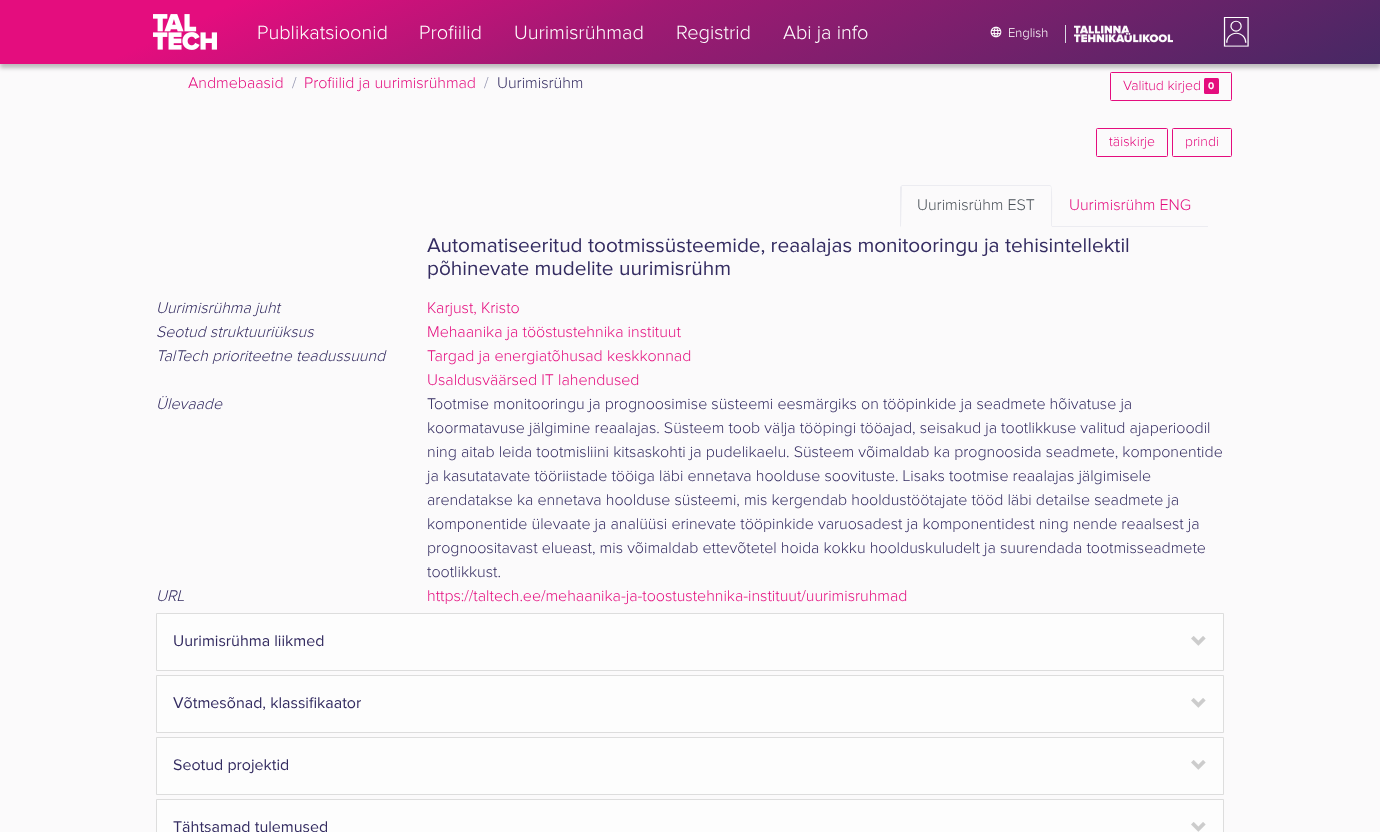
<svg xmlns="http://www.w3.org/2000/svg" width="1380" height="832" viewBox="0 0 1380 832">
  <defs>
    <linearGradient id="g1" gradientUnits="userSpaceOnUse" x1="555" y1="-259" x2="861" y2="398"><stop offset="0.14" stop-color="#e40d7e"/><stop offset="0.39" stop-color="#a11973"/><stop offset="0.84" stop-color="#4e2765"/><stop offset="1" stop-color="#342c61"/></linearGradient>
  </defs>
  <rect width="100%" height="100%" fill="#fbfafb"/>
  <path d="M0 4h1380v64H0z" fill="#00000040" filter="blur(2px)"/>
  <path d="M0 0h1380v64H0z" fill="url(#g1)"/>
  <image x="153" y="14" width="64" height="36" href="img/1.png"/>
  <image x="990" y="26" width="12" height="12" href="img/2.png"/>
  <path d="M1065 25h1v18H1065z" fill="#dadae4"/>
  <image x="1074" y="25" width="99" height="18" href="img/3.png"/>
  <image x="1223" y="17" width="26" height="30" href="img/4.png"/>
  <rect x="1110.5" y="72.5" width="121" height="28" rx="1" fill="none" stroke="#e40d7e"/>
  <rect x="1204" y="78" width="15" height="16" rx="1.5" fill="#e40d7e"/>
  <rect x="1096.5" y="128.5" width="71" height="28" rx="1" fill="none" stroke="#e40d7e"/>
  <rect x="1172.5" y="128.5" width="59" height="28" rx="1" fill="none" stroke="#e40d7e"/>
  <path d="M1052 226h156v1H1052z" fill="#ececf1"/>
  <path d="M902 185L901 186L902 187V186H1050H1051L1050 185Z" fill="#ececf1"/>
  <path d="M1052 227C1052 222 1053 187 1051 186H1050L1051 187V226Z" fill="#ececf1"/>
  <path d="M1052 227L1051 226H901L900 227Z" fill="#fbfafb"/>
  <path d="M900 227L901 226L902 187L901 186L900 187Z" fill="#ececf1"/>
  <path d="M156.5 613.5h1067v57H156.5z" fill="#fdfdfd" stroke="#ddd"/>
  <image x="1191" y="636" width="15" height="10" href="img/5.png"/>
  <path d="M156.5 675.5h1067v57H156.5z" fill="#fdfdfd" stroke="#ddd"/>
  <image x="1191" y="698" width="15" height="10" href="img/5.png"/>
  <path d="M156.5 737.5h1067v57H156.5z" fill="#fdfdfd" stroke="#ddd"/>
  <image x="1191" y="760" width="15" height="10" href="img/5.png"/>
  <path d="M156.5 799.5h1067v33H156.5z" fill="#fdfdfd" stroke="#ddd"/>
  <image x="1191" y="822" width="15" height="10" href="img/5.png"/>
  <g font-family="Proxima Nova" font-size="20" font-weight="300" fill="#fff">
    <text x="257" y="39">Publikatsioonid</text>
    <text x="419" y="39">Profiilid</text>
    <text x="514" y="39">Uurimisrühmad</text>
    <text x="676" y="39">Registrid</text>
    <text x="783" y="39">Abi ja info</text>
  </g>
  <text x="1008" y="37" font-family="Proxima Nova" font-size="13" font-weight="300" fill="#fff">English</text>
  <text x="188" y="88" font-family="Proxima Nova" font-size="16" font-weight="300" fill="#e40d7e">Andmebaasid</text>
  <text x="292" y="88" font-family="Proxima Nova" font-size="16" font-weight="300" fill="#9092ad">/</text>
  <text x="304" y="88" font-family="Proxima Nova" font-size="16" font-weight="300" fill="#e40d7e">Profiilid ja uurimisrühmad</text>
  <text x="484" y="88" font-family="Proxima Nova" font-size="16" font-weight="300" fill="#9092ad">/</text>
  <text x="497" y="88" font-family="Proxima Nova" font-size="16" font-weight="300" fill="#342c61">Uurimisrühm</text>
  <text x="1123" y="90" font-family="Proxima Nova" font-size="14" font-weight="300" fill="#e40d7e">Valitud kirjed</text>
  <text x="1208" y="89" font-family="Proxima Nova" font-size="10" font-weight="bold" fill="#fff">0</text>
  <g font-family="Proxima Nova" font-size="14" font-weight="300" fill="#e40d7e">
    <text x="1109" y="146">täiskirje</text>
    <text x="1185" y="146">prindi</text>
  </g>
  <text x="917" y="210" font-family="Proxima Nova" font-size="16" font-weight="300" fill="#495057">Uurimisrühm EST</text>
  <text x="1069" y="210" font-family="Proxima Nova" font-size="16" font-weight="300" fill="#e40d7e">Uurimisrühm ENG</text>
  <g font-family="Proxima Nova" font-size="20.8" fill="#342c61">
    <text x="427" y="252">Automatiseeritud tootmissüsteemide, reaalajas monitooringu ja tehisintellektil</text>
    <text x="427" y="275">põhinevate mudelite uurimisrühm</text>
  </g>
  <text x="156" y="313" font-family="Proxima Nova" font-size="16" font-weight="300" font-style="italic" fill="#342c61">Uurimisrühma juht</text>
  <text x="427" y="313" font-family="Proxima Nova" font-size="16" font-weight="300" fill="#e40d7e">Karjust, Kristo</text>
  <text x="156" y="337" font-family="Proxima Nova" font-size="16" font-weight="300" font-style="italic" fill="#342c61">Seotud struktuuriüksus</text>
  <text x="427" y="337" font-family="Proxima Nova" font-size="16" font-weight="300" fill="#e40d7e">Mehaanika ja tööstustehnika instituut</text>
  <text x="156" y="361" font-family="Proxima Nova" font-size="16" font-weight="300" font-style="italic" fill="#342c61">TalTech prioriteetne teadussuund</text>
  <g font-family="Proxima Nova" font-size="16" font-weight="300" fill="#e40d7e">
    <text x="427" y="361">Targad ja energiatõhusad keskkonnad</text>
    <text x="427" y="385">Usaldusväärsed IT lahendused</text>
  </g>
  <text x="156" y="409" font-family="Proxima Nova" font-size="16" font-weight="300" font-style="italic" fill="#342c61">Ülevaade</text>
  <g font-family="Proxima Nova" font-size="16" font-weight="300" fill="#342c61">
    <text x="427" y="409">Tootmise monitooringu ja prognoosimise süsteemi eesmärgiks on tööpinkide ja seadmete hõivatuse ja</text>
    <text x="427" y="433">koormatavuse jälgimine reaalajas. Süsteem toob välja tööpingi tööajad, seisakud ja tootlikkuse valitud ajaperioodil</text>
    <text x="427" y="457">ning aitab leida tootmisliini kitsaskohti ja pudelikaelu. Süsteem võimaldab ka prognoosida seadmete, komponentide</text>
    <text x="427" y="481">ja kasutatavate tööriistade tööiga läbi ennetava hoolduse soovituste. Lisaks tootmise reaalajas jälgimisele</text>
    <text x="427" y="505">arendatakse ka ennetava hoolduse süsteemi, mis kergendab hooldustöötajate tööd läbi detailse seadmete ja</text>
    <text x="427" y="529">komponentide ülevaate ja analüüsi erinevate tööpinkide varuosadest ja komponentidest ning nende reaalsest ja</text>
    <text x="427" y="553">prognoositavast elueast, mis võimaldab ettevõtetel hoida kokku hoolduskuludelt ja suurendada tootmisseadmete</text>
    <text x="427" y="577">tootlikkust.</text>
  </g>
  <text x="156" y="601" font-family="Proxima Nova" font-size="16" font-weight="300" font-style="italic" fill="#342c61">URL</text>
  <text x="427" y="601" font-family="Proxima Nova" font-size="16" font-weight="300" fill="#e40d7e">https://taltech.ee/mehaanika-ja-toostustehnika-instituut/uurimisruhmad</text>
  <g font-family="Proxima Nova" font-size="16" fill="#342c61">
    <text x="173" y="646">Uurimisrühma liikmed</text>
    <text x="173" y="708">Võtmesõnad, klassifikaator</text>
    <text x="173" y="770">Seotud projektid</text>
    <text x="173" y="832">Tähtsamad tulemused</text>
  </g>
</svg>
